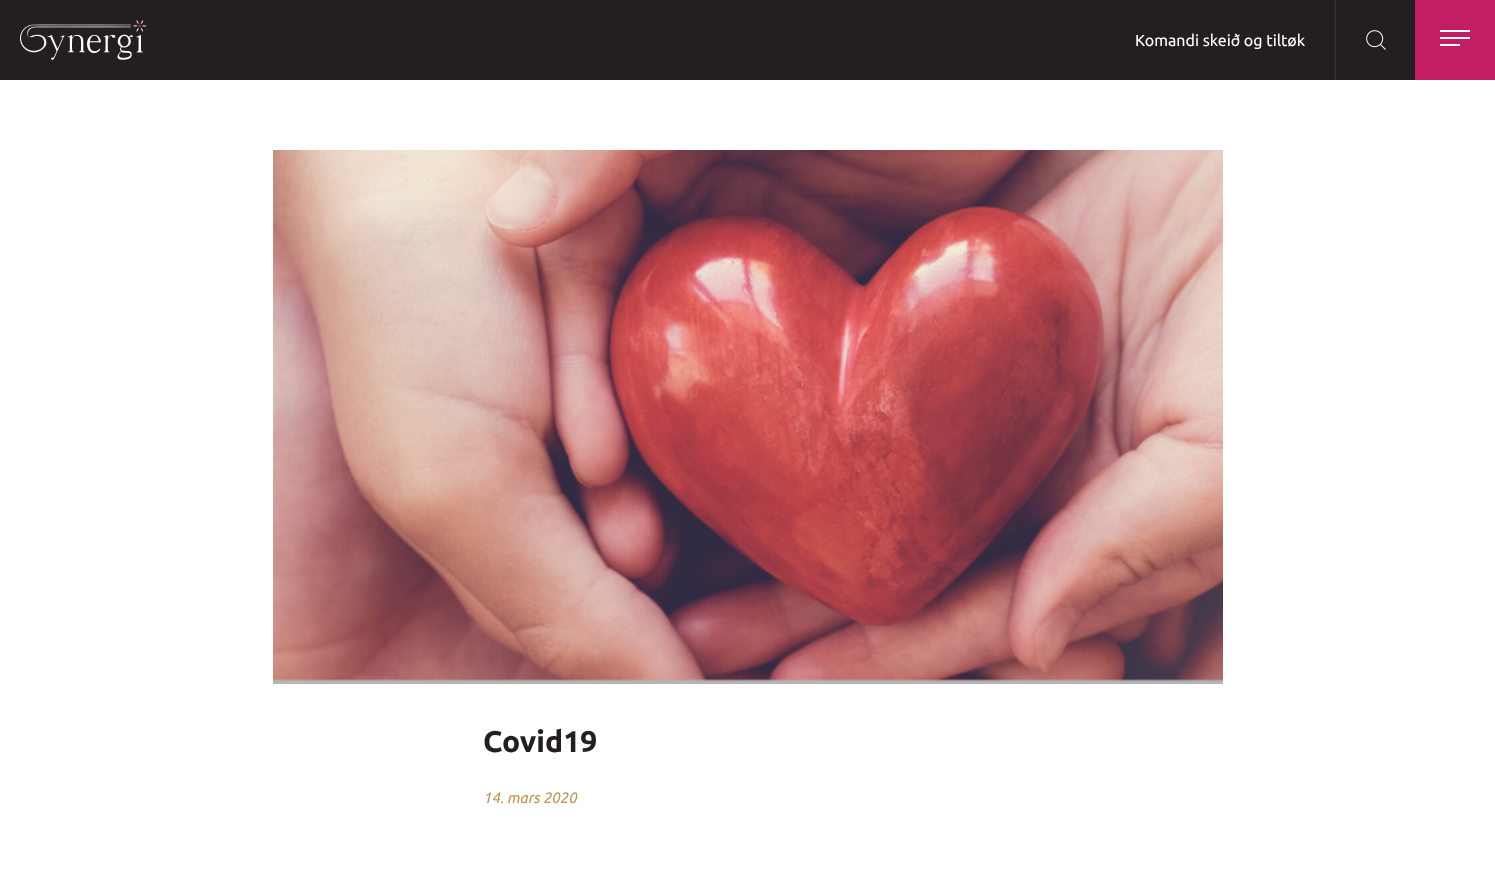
<svg xmlns="http://www.w3.org/2000/svg" width="1495" height="889" viewBox="0 0 1495 889">
  <rect width="100%" height="100%" fill="#fff"/>
  <path d="M0 0h1415v80H0z" fill="#231f20"/>
  <image x="20" y="20" width="127" height="40" href="img/1.png"/>
  <path d="M1335 0h1v80H1335z" fill="#393536"/>
  <image x="1366" y="30" width="20" height="20" href="img/2.png"/>
  <path d="M1415 0h80v80H1415z" fill="#c31e64"/>
  <path d="M1440 30h30v2H1440z" fill="#fff"/>
  <path d="M1440 37h30v2H1440z" fill="#fff"/>
  <path d="M1440 44h20v2H1440z" fill="#fff"/>
  <image x="273" y="150" width="950" height="534" href="img/3.png"/>
  <text x="1135" y="46" font-family="Ubuntu" font-size="16" fill="#fff">Komandi skeið og tiltøk</text>
  <text x="483" y="752" font-family="Ubuntu" font-size="30" font-weight="bold" fill="#231f20">Covid19</text>
  <text x="483" y="803" font-family="Ubuntu" font-size="15" font-style="italic" fill="#bb9457">14. mars 2020</text>
</svg>
